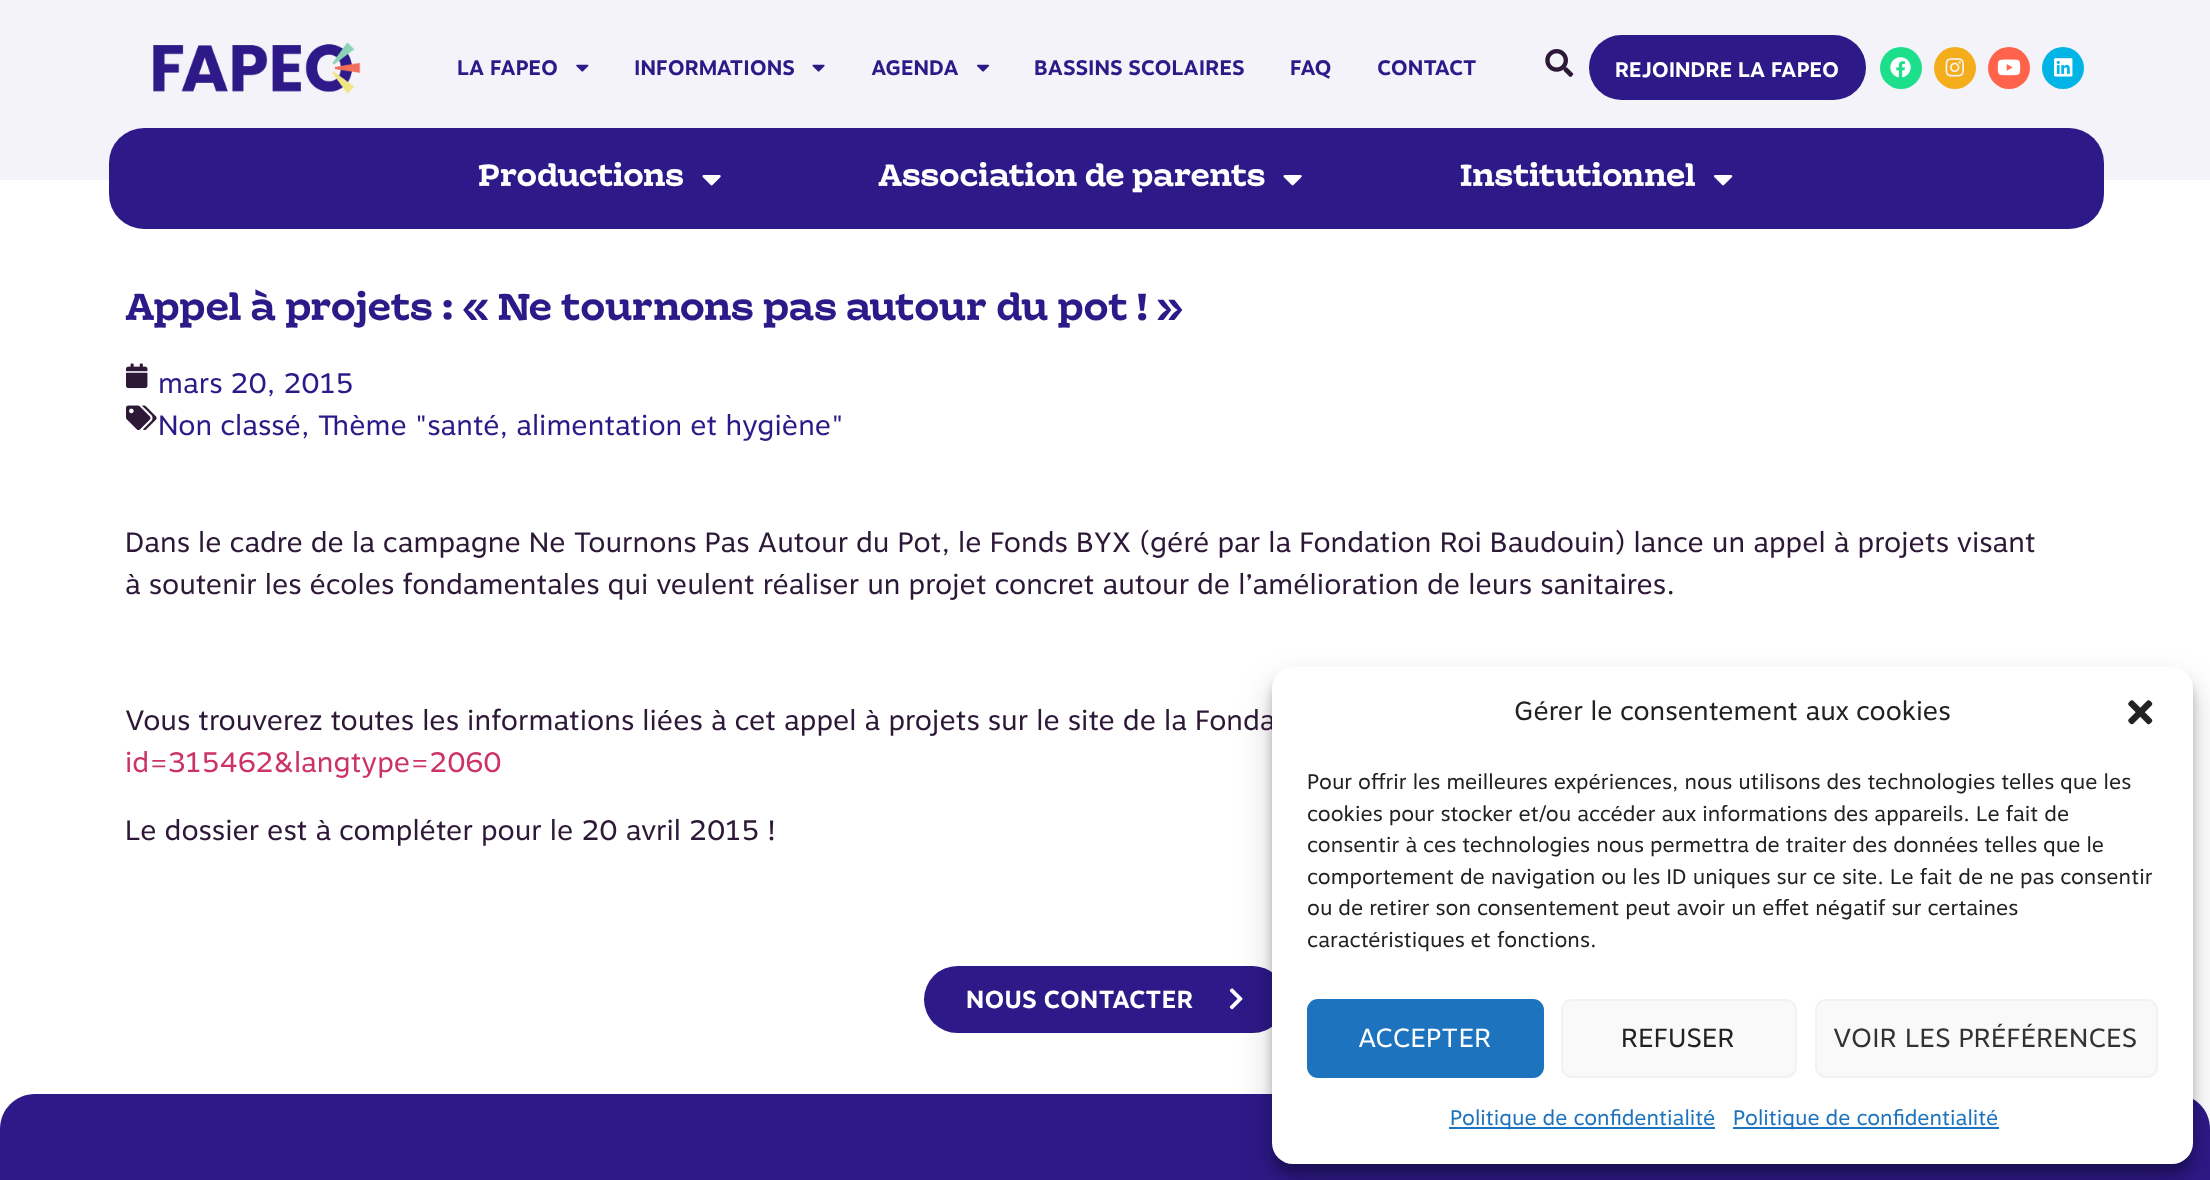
<svg xmlns="http://www.w3.org/2000/svg" width="2210" height="1180" viewBox="0 0 2210 1180">
  <rect width="100%" height="100%" fill="#fff"/>
  <path d="M0 0h2210v180H0z" fill="#f4f3f9"/>
  <image x="153" y="42" width="208" height="52" href="img/1.png"/>
  <image x="576" y="64" width="13" height="8" href="img/2.png"/>
  <image x="812" y="64" width="13" height="8" href="img/3.png"/>
  <image x="977" y="64" width="13" height="8" href="img/4.png"/>
  <image x="1545" y="49" width="29" height="28" href="img/5.png"/>
  <rect x="1589" y="35" width="277" height="65" rx="32.5" fill="#2d1987"/>
  <circle cx="1901" cy="68" r="21" fill="#1bdf8b"/>
  <image x="1890" y="57" width="21" height="21" href="img/6.png"/>
  <circle cx="1955" cy="68" r="21" fill="#f5ae1b"/>
  <image x="1945" y="58" width="19" height="19" href="img/7.png"/>
  <circle cx="2009" cy="68" r="21" fill="#ff634b"/>
  <image x="1997" y="59" width="24" height="17" href="img/8.png"/>
  <circle cx="2063" cy="68" r="21" fill="#00b4e6"/>
  <image x="2054" y="58" width="19" height="19" href="img/9.png"/>
  <rect x="109" y="128" width="1995" height="101" rx="35" fill="#2d1987"/>
  <image x="702" y="175" width="19" height="11" href="img/10.png"/>
  <image x="1283" y="175" width="19" height="11" href="img/10.png"/>
  <image x="1714" y="175" width="19" height="11" href="img/11.png"/>
  <image x="126" y="363" width="22" height="26" href="img/12.png"/>
  <image x="126" y="405" width="31" height="25" href="img/13.png"/>
  <rect x="924" y="966" width="362" height="67" rx="33.5" fill="#2d1987"/>
  <image x="1229" y="988" width="14" height="22" href="img/14.png"/>
  <path d="M35 1094H250V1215H35C15.5 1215 0 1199.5 0 1180V1129C0 1109.5 15.5 1094 35 1094Z" fill="#2d1987"/>
  <path d="M250 1094h966v86H250z" fill="#2d1987"/>
  <path d="M1216 1094H2175C2194.5 1094 2210 1109.5 2210 1129V1180C2210 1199.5 2194.5 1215 2175 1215H1216Z" fill="#2d1987"/>
  <rect x="1272" y="677" width="921" height="497" rx="21" fill="#0000003b" filter="blur(5px)"/>
  <rect x="1272" y="684" width="921" height="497" rx="21" fill="#00000030" filter="blur(17.5px)"/>
  <g font-family="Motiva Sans" font-size="21" font-weight="bold" fill="#2d1987">
    <text x="457" y="75">LA FAPEO</text>
    <text x="634" y="75">INFORMATIONS</text>
    <text x="871" y="75">AGENDA</text>
    <text x="1034" y="75">BASSINS SCOLAIRES</text>
    <text x="1290" y="75">FAQ</text>
    <text x="1377" y="75">CONTACT</text>
  </g>
  <text x="1615" y="77" font-family="Motiva Sans" font-size="21" font-weight="bold" fill="#fff">REJOINDRE LA FAPEO</text>
  <g font-family="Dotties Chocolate" font-size="31.5" font-weight="bold" fill="#fff">
    <text x="478" y="186">Productions</text>
    <text x="878" y="186">Association de parents</text>
    <text x="1460" y="186">Institutionnel</text>
  </g>
  <text x="125" y="320" font-family="Dotties Chocolate" font-size="38.5" font-weight="bold" fill="#2d1987">Appel à projets : « Ne tournons pas autour du pot ! »</text>
  <g font-family="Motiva" font-size="28" fill="#2d1987">
    <text x="158" y="393">mars 20, 2015</text>
    <text x="158" y="435">Non classé, Thème "santé, alimentation et hygiène"</text>
  </g>
  <g font-family="Motiva" font-size="28" fill="#2d1937">
    <text x="125" y="552">Dans le cadre de la campagne Ne Tournons Pas Autour du Pot, le Fonds BYX (géré par la Fondation Roi Baudouin) lance un appel à projets visant</text>
    <text x="125" y="594">à soutenir les écoles fondamentales qui veulent réaliser un projet concret autour de l’amélioration de leurs sanitaires.</text>
    <text x="125" y="730">Vous trouverez toutes les informations liées à cet appel à projets sur le site de la Fonda</text>
  </g>
  <text x="125" y="772" font-family="Motiva" font-size="28" fill="#c36">id=315462&amp;langtype=2060</text>
  <text x="125" y="840" font-family="Motiva" font-size="28" fill="#2d1937">Le dossier est à compléter pour le 20 avril 2015 !</text>
  <text x="966" y="1008" font-family="Motiva Sans" font-size="24.5" font-weight="bold" letter-spacing="0.3" fill="#fff">NOUS CONTACTER</text>
  <rect x="1272" y="667" width="921" height="497" rx="21" fill="#fff"/>
  <text x="1514" y="720" font-family="Motiva" font-size="26.25" fill="#222">Gérer le consentement aux cookies</text>
  <image x="2128" y="700" width="25" height="25" href="img/15.png"/>
  <g font-family="Motiva" font-size="21" fill="#222">
    <text x="1307" y="789">Pour offrir les meilleures expériences, nous utilisons des technologies telles que les</text>
    <text x="1307" y="821">cookies pour stocker et/ou accéder aux informations des appareils. Le fait de</text>
    <text x="1307" y="852">consentir à ces technologies nous permettra de traiter des données telles que le</text>
    <text x="1307" y="884">comportement de navigation ou les ID uniques sur ce site. Le fait de ne pas consentir</text>
    <text x="1307" y="915">ou de retirer son consentement peut avoir un effet négatif sur certaines</text>
    <text x="1307" y="947">caractéristiques et fonctions.</text>
  </g>
  <rect x="1308" y="1000" width="235" height="77" rx="10" fill="#1e73be" stroke="#1e73be" stroke-width="2"/>
  <text x="1358" y="1047" font-family="Motiva" font-size="26.25" letter-spacing="0.3" fill="#fff">ACCEPTER</text>
  <rect x="1562" y="1000" width="234" height="77" rx="10" fill="#f9f9f9" stroke="#f2f2f2" stroke-width="2"/>
  <text x="1621" y="1047" font-family="Motiva" font-size="26.25" letter-spacing="0.3" fill="#222">REFUSER</text>
  <rect x="1816" y="1000" width="341" height="77" rx="10" fill="#f9f9f9" stroke="#f2f2f2" stroke-width="2"/>
  <text x="1833" y="1047" font-family="Motiva" font-size="26.25" letter-spacing="0.3" fill="#333">VOIR LES PRÉFÉRENCES</text>
  <path d="M1449 1127h266v2H1449z" fill="#1e73be"/>
  <text x="1450" y="1125" font-family="Motiva" font-size="21" fill="#1e73be">Politique de confidentialité</text>
  <path d="M1733 1127h266v2H1733z" fill="#1e73be"/>
  <text x="1733" y="1125" font-family="Motiva" font-size="21" fill="#1e73be">Politique de confidentialité</text>
</svg>
